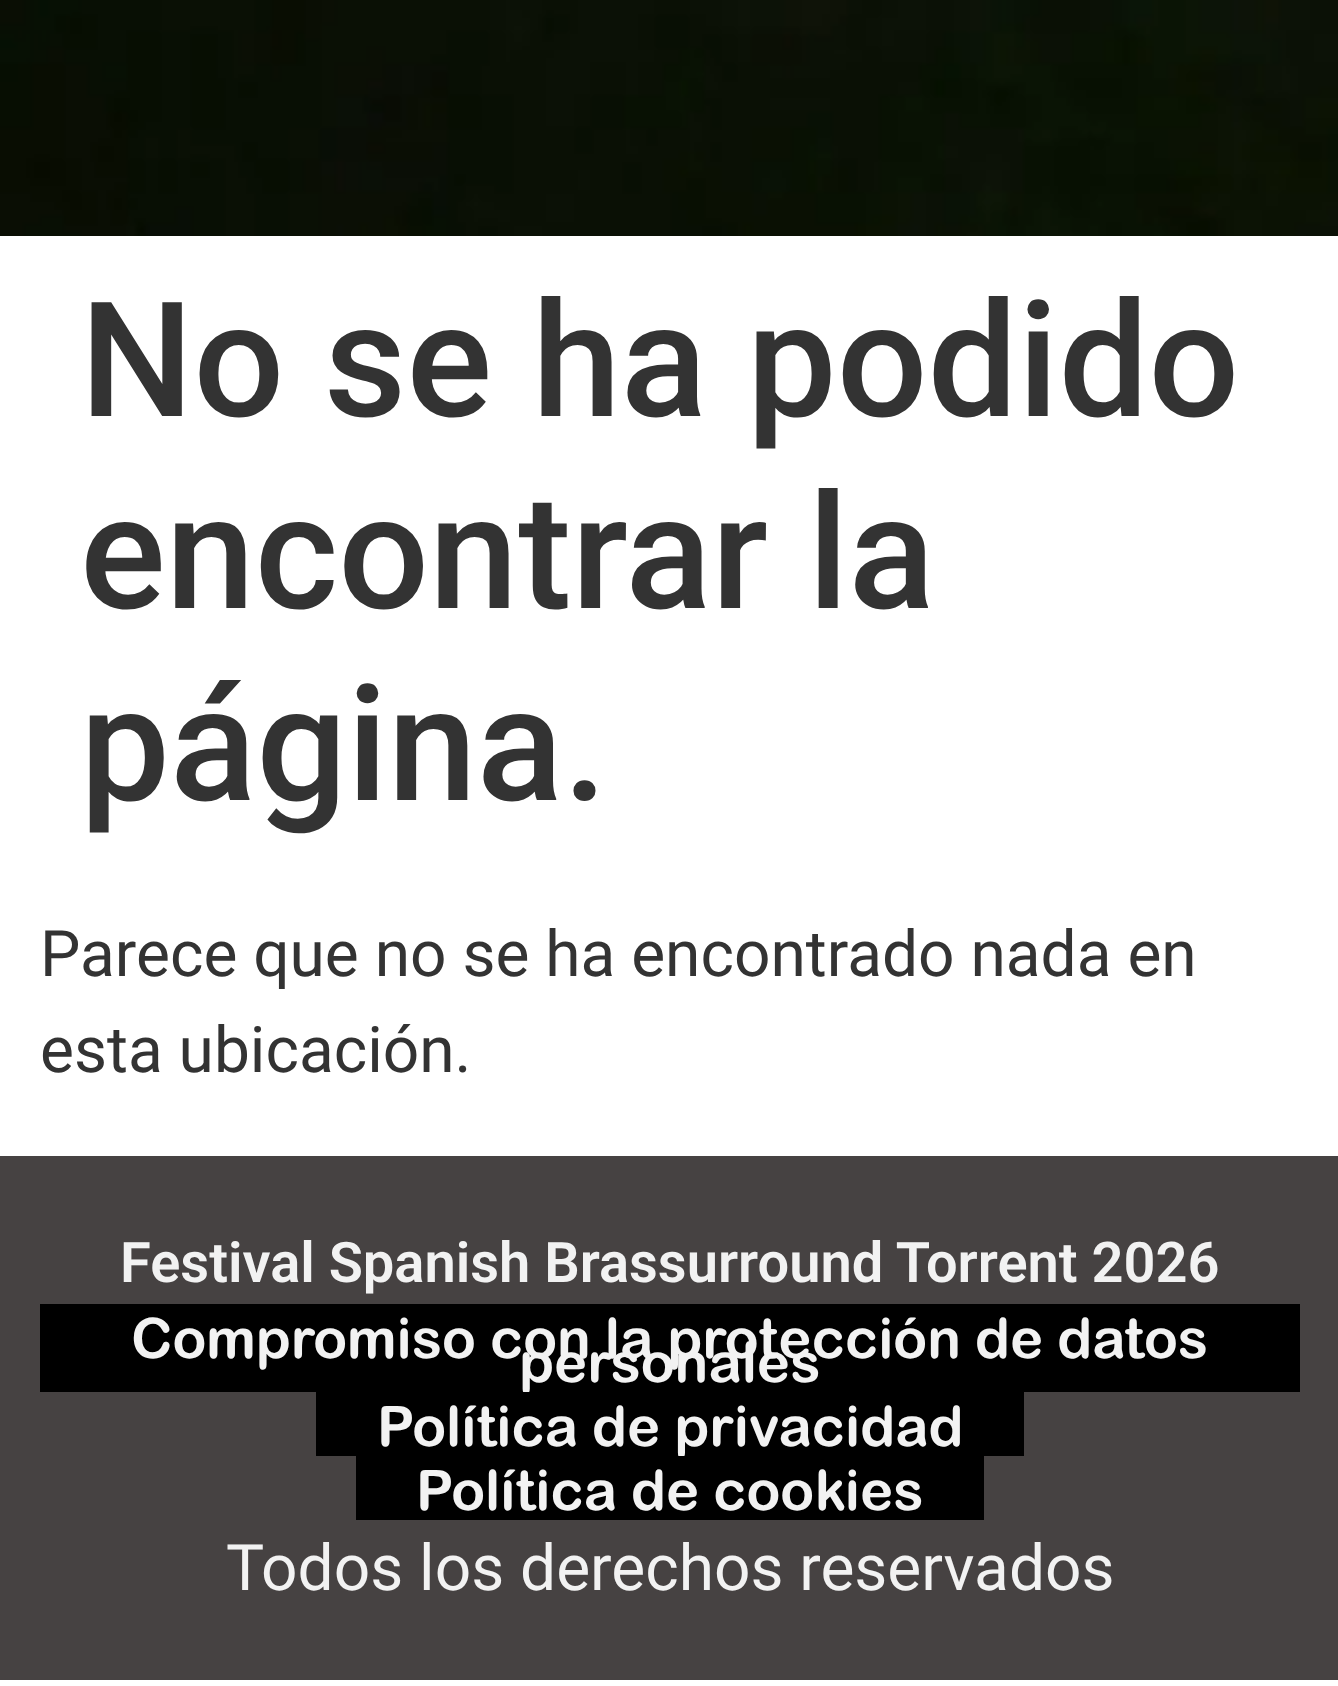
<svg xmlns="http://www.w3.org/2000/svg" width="1338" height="1686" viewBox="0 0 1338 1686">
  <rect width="100%" height="100%" fill="#fff"/>
  <image x="0" y="0" width="1338" height="236" href="img/1.png"/>
  <path d="M0 1156h1338v524H0z" fill="#464242"/>
  <path d="M40 1304h1260v88H40z" fill="#000"/>
  <g font-family="Roboto" font-size="160" font-weight="500" fill="#333">
    <text x="80" y="416">No se ha podido</text>
    <text x="80" y="608">encontrar la</text>
    <text x="80" y="800">página.</text>
  </g>
  <g font-family="Roboto" font-size="64" fill="#333">
    <text x="40" y="976">Parece que no se ha encontrado nada en</text>
    <text x="40" y="1072">esta ubicación.</text>
  </g>
  <text x="120" y="1282" font-family="Roboto" font-size="56" font-weight="600" fill="#f2f2f2">Festival Spanish Brassurround Torrent 2026</text>
  <g font-family="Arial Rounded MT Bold" font-size="56" font-weight="bold" fill="#f2f2f2">
    <text x="131" y="1358">Compromiso con la protección de datos</text>
    <text x="519" y="1382">personales</text>
  </g>
  <path d="M316 1392h708v64H316z" fill="#000"/>
  <text x="377" y="1446" font-family="Arial Rounded MT Bold" font-size="56" font-weight="bold" fill="#f2f2f2">Política de privacidad</text>
  <path d="M356 1456h628v64H356z" fill="#000"/>
  <text x="416" y="1510" font-family="Arial Rounded MT Bold" font-size="56" font-weight="bold" fill="#f2f2f2">Política de cookies</text>
  <text x="226" y="1590" font-family="Roboto" font-size="64" fill="#f2f2f2">Todos los derechos reservados</text>
</svg>
